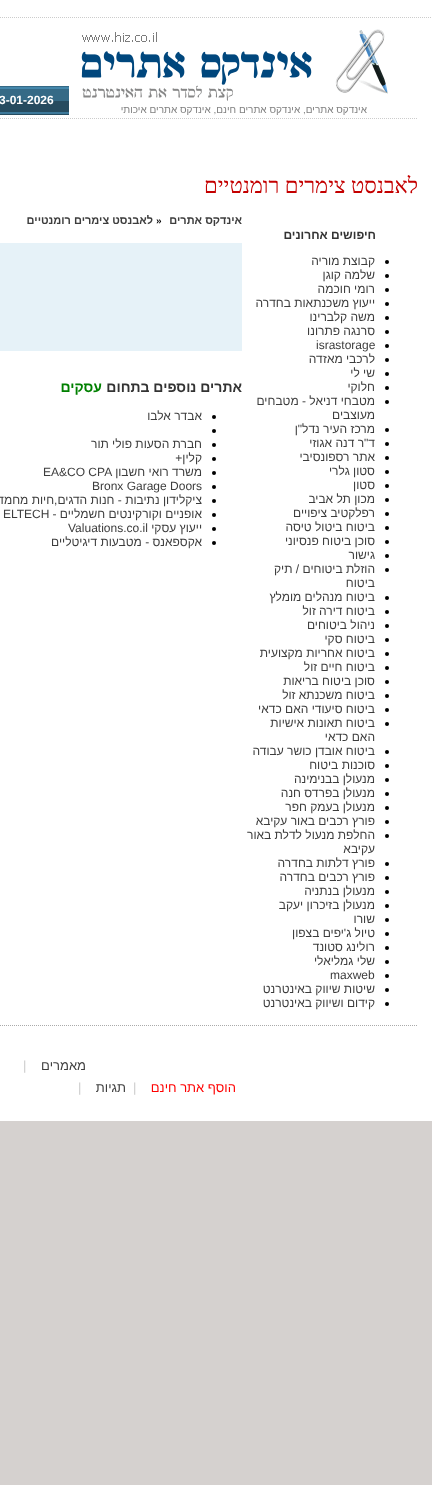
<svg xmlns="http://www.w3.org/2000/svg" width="432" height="1485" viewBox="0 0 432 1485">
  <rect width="100%" height="100%" fill="#d5d1cf"/>
  <path d="M0 0h432v1121H0z" fill="#fff"/>
  <path d="M-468 17.5H432" fill="none" stroke="#ccc" stroke-dasharray="1 1"/>
  <path d="M-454 118.5H418" fill="none" stroke="#ccc" stroke-dasharray="1 1"/>
  <image x="0" y="86" width="69" height="29" href="img/1.png"/>
  <image x="81" y="29" width="307" height="72" href="img/2.png"/>
  <circle cx="387" cy="262" r="2" fill="#000"/>
  <circle cx="387" cy="276" r="2" fill="#000"/>
  <circle cx="387" cy="290" r="2" fill="#000"/>
  <circle cx="387" cy="304" r="2" fill="#000"/>
  <circle cx="387" cy="318" r="2" fill="#000"/>
  <circle cx="387" cy="332" r="2" fill="#000"/>
  <circle cx="387" cy="346" r="2" fill="#000"/>
  <circle cx="387" cy="360" r="2" fill="#000"/>
  <circle cx="387" cy="374" r="2" fill="#000"/>
  <circle cx="387" cy="388" r="2" fill="#000"/>
  <circle cx="387" cy="402" r="2" fill="#000"/>
  <circle cx="387" cy="430" r="2" fill="#000"/>
  <circle cx="387" cy="444" r="2" fill="#000"/>
  <circle cx="387" cy="458" r="2" fill="#000"/>
  <circle cx="387" cy="472" r="2" fill="#000"/>
  <circle cx="387" cy="486" r="2" fill="#000"/>
  <circle cx="387" cy="500" r="2" fill="#000"/>
  <circle cx="387" cy="514" r="2" fill="#000"/>
  <circle cx="387" cy="528" r="2" fill="#000"/>
  <circle cx="387" cy="542" r="2" fill="#000"/>
  <circle cx="387" cy="556" r="2" fill="#000"/>
  <circle cx="387" cy="570" r="2" fill="#000"/>
  <circle cx="387" cy="598" r="2" fill="#000"/>
  <circle cx="387" cy="612" r="2" fill="#000"/>
  <circle cx="387" cy="626" r="2" fill="#000"/>
  <circle cx="387" cy="640" r="2" fill="#000"/>
  <circle cx="387" cy="654" r="2" fill="#000"/>
  <circle cx="387" cy="668" r="2" fill="#000"/>
  <circle cx="387" cy="682" r="2" fill="#000"/>
  <circle cx="387" cy="696" r="2" fill="#000"/>
  <circle cx="387" cy="710" r="2" fill="#000"/>
  <circle cx="387" cy="724" r="2" fill="#000"/>
  <circle cx="387" cy="752" r="2" fill="#000"/>
  <circle cx="387" cy="766" r="2" fill="#000"/>
  <circle cx="387" cy="780" r="2" fill="#000"/>
  <circle cx="387" cy="794" r="2" fill="#000"/>
  <circle cx="387" cy="808" r="2" fill="#000"/>
  <circle cx="387" cy="822" r="2" fill="#000"/>
  <circle cx="387" cy="836" r="2" fill="#000"/>
  <circle cx="387" cy="864" r="2" fill="#000"/>
  <circle cx="387" cy="878" r="2" fill="#000"/>
  <circle cx="387" cy="892" r="2" fill="#000"/>
  <circle cx="387" cy="906" r="2" fill="#000"/>
  <circle cx="387" cy="920" r="2" fill="#000"/>
  <circle cx="387" cy="934" r="2" fill="#000"/>
  <circle cx="387" cy="948" r="2" fill="#000"/>
  <circle cx="387" cy="962" r="2" fill="#000"/>
  <circle cx="387" cy="976" r="2" fill="#000"/>
  <circle cx="387" cy="990" r="2" fill="#000"/>
  <circle cx="387" cy="1004" r="2" fill="#000"/>
  <path d="M0 243h242v108H0z" fill="#e6f2f8"/>
  <circle cx="214" cy="417" r="2" fill="#000"/>
  <circle cx="214" cy="431" r="2" fill="#000"/>
  <circle cx="214" cy="445" r="2" fill="#000"/>
  <circle cx="214" cy="459" r="2" fill="#000"/>
  <circle cx="214" cy="473" r="2" fill="#000"/>
  <circle cx="214" cy="487" r="2" fill="#000"/>
  <circle cx="214" cy="501" r="2" fill="#000"/>
  <circle cx="214" cy="515" r="2" fill="#000"/>
  <circle cx="214" cy="529" r="2" fill="#000"/>
  <circle cx="214" cy="543" r="2" fill="#000"/>
  <path d="M-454 1025.5H418" fill="none" stroke="#aaa" stroke-dasharray="1 1"/>
  <text x="-1" y="104" font-family="Liberation Sans" font-size="12" font-weight="bold" fill="#fff">3-01-2026</text>
  <text x="367" y="113" font-family="Liberation Sans" font-size="10" direction="rtl" fill="#808080">אינדקס אתרים, אינדקס אתרים חינם, אינדקס אתרים איכותי</text>
  <text x="418" y="193" font-family="Liberation Serif" font-size="22" direction="rtl" fill="#c40000">לאבנסט צימרים רומנטיים</text>
  <text x="376" y="239" font-family="Liberation Sans" font-size="12" font-weight="bold" direction="rtl" fill="#333">חיפושים אחרונים</text>
  <g font-family="Liberation Sans" font-size="12" direction="rtl" fill="#3d3d3d">
    <text x="375" y="265">קבוצת מוריה</text>
    <text x="375" y="279">שלמה קוגן</text>
    <text x="375" y="293">רומי חוכמה</text>
    <text x="375" y="307">ייעוץ משכנתאות בחדרה</text>
    <text x="375" y="321">משה קלברינו</text>
    <text x="375" y="335">סרנגה פתרונו</text>
  </g>
  <text x="316" y="349" font-family="Liberation Sans" font-size="12" fill="#3d3d3d">israstorage</text>
  <g font-family="Liberation Sans" font-size="12" direction="rtl" fill="#3d3d3d">
    <text x="375" y="363">לרכבי מאזדה</text>
    <text x="375" y="377">שי לי</text>
    <text x="375" y="391">חלוקי</text>
    <text x="375" y="405">מטבחי דניאל - מטבחים</text>
    <text x="375" y="419">מעוצבים</text>
    <text x="375" y="433">מרכז העיר נדל"ן</text>
    <text x="375" y="447">ד"ר דנה אגוזי</text>
    <text x="375" y="461">אתר רספונסיבי</text>
    <text x="375" y="475">סטון גלרי</text>
    <text x="375" y="489">סטון</text>
    <text x="375" y="503">מכון תל אביב</text>
    <text x="375" y="517">רפלקטיב ציפויים</text>
    <text x="375" y="531">ביטוח ביטול טיסה</text>
    <text x="375" y="545">סוכן ביטוח פנסיוני</text>
    <text x="375" y="559">גישור</text>
    <text x="375" y="573">הוזלת ביטוחים / תיק</text>
    <text x="375" y="587">ביטוח</text>
    <text x="375" y="601">ביטוח מנהלים מומלץ</text>
    <text x="375" y="615">ביטוח דירה זול</text>
    <text x="375" y="629">ניהול ביטוחים</text>
    <text x="375" y="643">ביטוח סקי</text>
    <text x="375" y="657">ביטוח אחריות מקצועית</text>
    <text x="375" y="671">ביטוח חיים זול</text>
    <text x="375" y="685">סוכן ביטוח בריאות</text>
    <text x="375" y="699">ביטוח משכנתא זול</text>
    <text x="375" y="713">ביטוח סיעודי האם כדאי</text>
    <text x="375" y="727">ביטוח תאונות אישיות</text>
    <text x="375" y="741">האם כדאי</text>
    <text x="375" y="755">ביטוח אובדן כושר עבודה</text>
    <text x="375" y="769">סוכנות ביטוח</text>
    <text x="375" y="783">מנעולן בבנימינה</text>
    <text x="375" y="797">מנעולן בפרדס חנה</text>
    <text x="375" y="811">מנעולן בעמק חפר</text>
    <text x="375" y="825">פורץ רכבים באור עקיבא</text>
    <text x="375" y="839">החלפת מנעול לדלת באור</text>
    <text x="375" y="853">עקיבא</text>
    <text x="375" y="867">פורץ דלתות בחדרה</text>
    <text x="375" y="881">פורץ רכבים בחדרה</text>
    <text x="375" y="895">מנעולן בנתניה</text>
    <text x="375" y="909">מנעולן בזיכרון יעקב</text>
    <text x="375" y="923">שורו</text>
    <text x="375" y="937">טיול ג'יפים בצפון</text>
    <text x="375" y="951">רולינג סטונד</text>
    <text x="375" y="965">שלי גמליאלי</text>
  </g>
  <text x="330" y="979" font-family="Liberation Sans" font-size="12" fill="#3d3d3d">maxweb</text>
  <g font-family="Liberation Sans" font-size="12" direction="rtl" fill="#3d3d3d">
    <text x="375" y="993">שיטות שיווק באינטרנט</text>
    <text x="375" y="1007">קידום ושיווק באינטרנט</text>
  </g>
  <text x="242" y="224" font-family="Liberation Sans" font-size="11" font-weight="bold" direction="rtl" fill="#3d3d3d">אינדקס אתרים</text>
  <text x="156" y="224" font-family="Liberation Sans" font-size="10" font-weight="bold" fill="#000">»</text>
  <text x="153" y="224" font-family="Liberation Sans" font-size="11" font-weight="bold" direction="rtl" fill="#3d3d3d">לאבנסט צימרים רומנטיים</text>
  <text x="242" y="392" font-family="Liberation Sans" font-size="14" font-weight="bold" direction="rtl" fill="#333">אתרים נוספים בתחום</text>
  <text x="102" y="392" font-family="Liberation Sans" font-size="14" font-weight="bold" direction="rtl" fill="#008000">עסקים</text>
  <g font-family="Liberation Sans" font-size="12" direction="rtl" fill="#3d3d3d">
    <text x="202" y="420">אבדר אלבו</text>
    <text x="202" y="448">חברת הסעות פולי תור</text>
    <text x="202" y="462">קלין+</text>
    <text x="202" y="476">משרד רואי חשבון</text>
  </g>
  <g font-family="Liberation Sans" font-size="12" fill="#3d3d3d">
    <text x="43" y="476">EA&amp;CO CPA</text>
    <text x="92" y="490">Bronx Garage Doors</text>
  </g>
  <g font-family="Liberation Sans" font-size="12" direction="rtl" fill="#3d3d3d">
    <text x="202" y="504">ציקלידון נתיבות - חנות הדגים,חיות מחמד</text>
    <text x="202" y="518">אופניים וקורקינטים חשמליים -</text>
  </g>
  <text x="3" y="518" font-family="Liberation Sans" font-size="12" fill="#3d3d3d">ELTECH</text>
  <text x="202" y="532" font-family="Liberation Sans" font-size="12" direction="rtl" fill="#3d3d3d">ייעוץ עסקי</text>
  <text x="68" y="532" font-family="Liberation Sans" font-size="12" fill="#3d3d3d">Valuations.co.il</text>
  <text x="202" y="546" font-family="Liberation Sans" font-size="12" direction="rtl" fill="#3d3d3d">אקספאנס - מטבעות דיגיטליים</text>
  <text x="86" y="1070" font-family="Liberation Sans" font-size="13" direction="rtl" fill="#3d3d3d">מאמרים</text>
  <text x="23" y="1070" font-family="Liberation Sans" font-size="13" fill="#ccc">|</text>
  <text x="236" y="1092" font-family="Liberation Sans" font-size="13" direction="rtl" fill="#f00">הוסף אתר חינם</text>
  <text x="133" y="1092" font-family="Liberation Sans" font-size="13" fill="#ccc">|</text>
  <text x="126" y="1092" font-family="Liberation Sans" font-size="13" direction="rtl" fill="#3d3d3d">תגיות</text>
  <text x="78" y="1092" font-family="Liberation Sans" font-size="13" fill="#ccc">|</text>
</svg>
